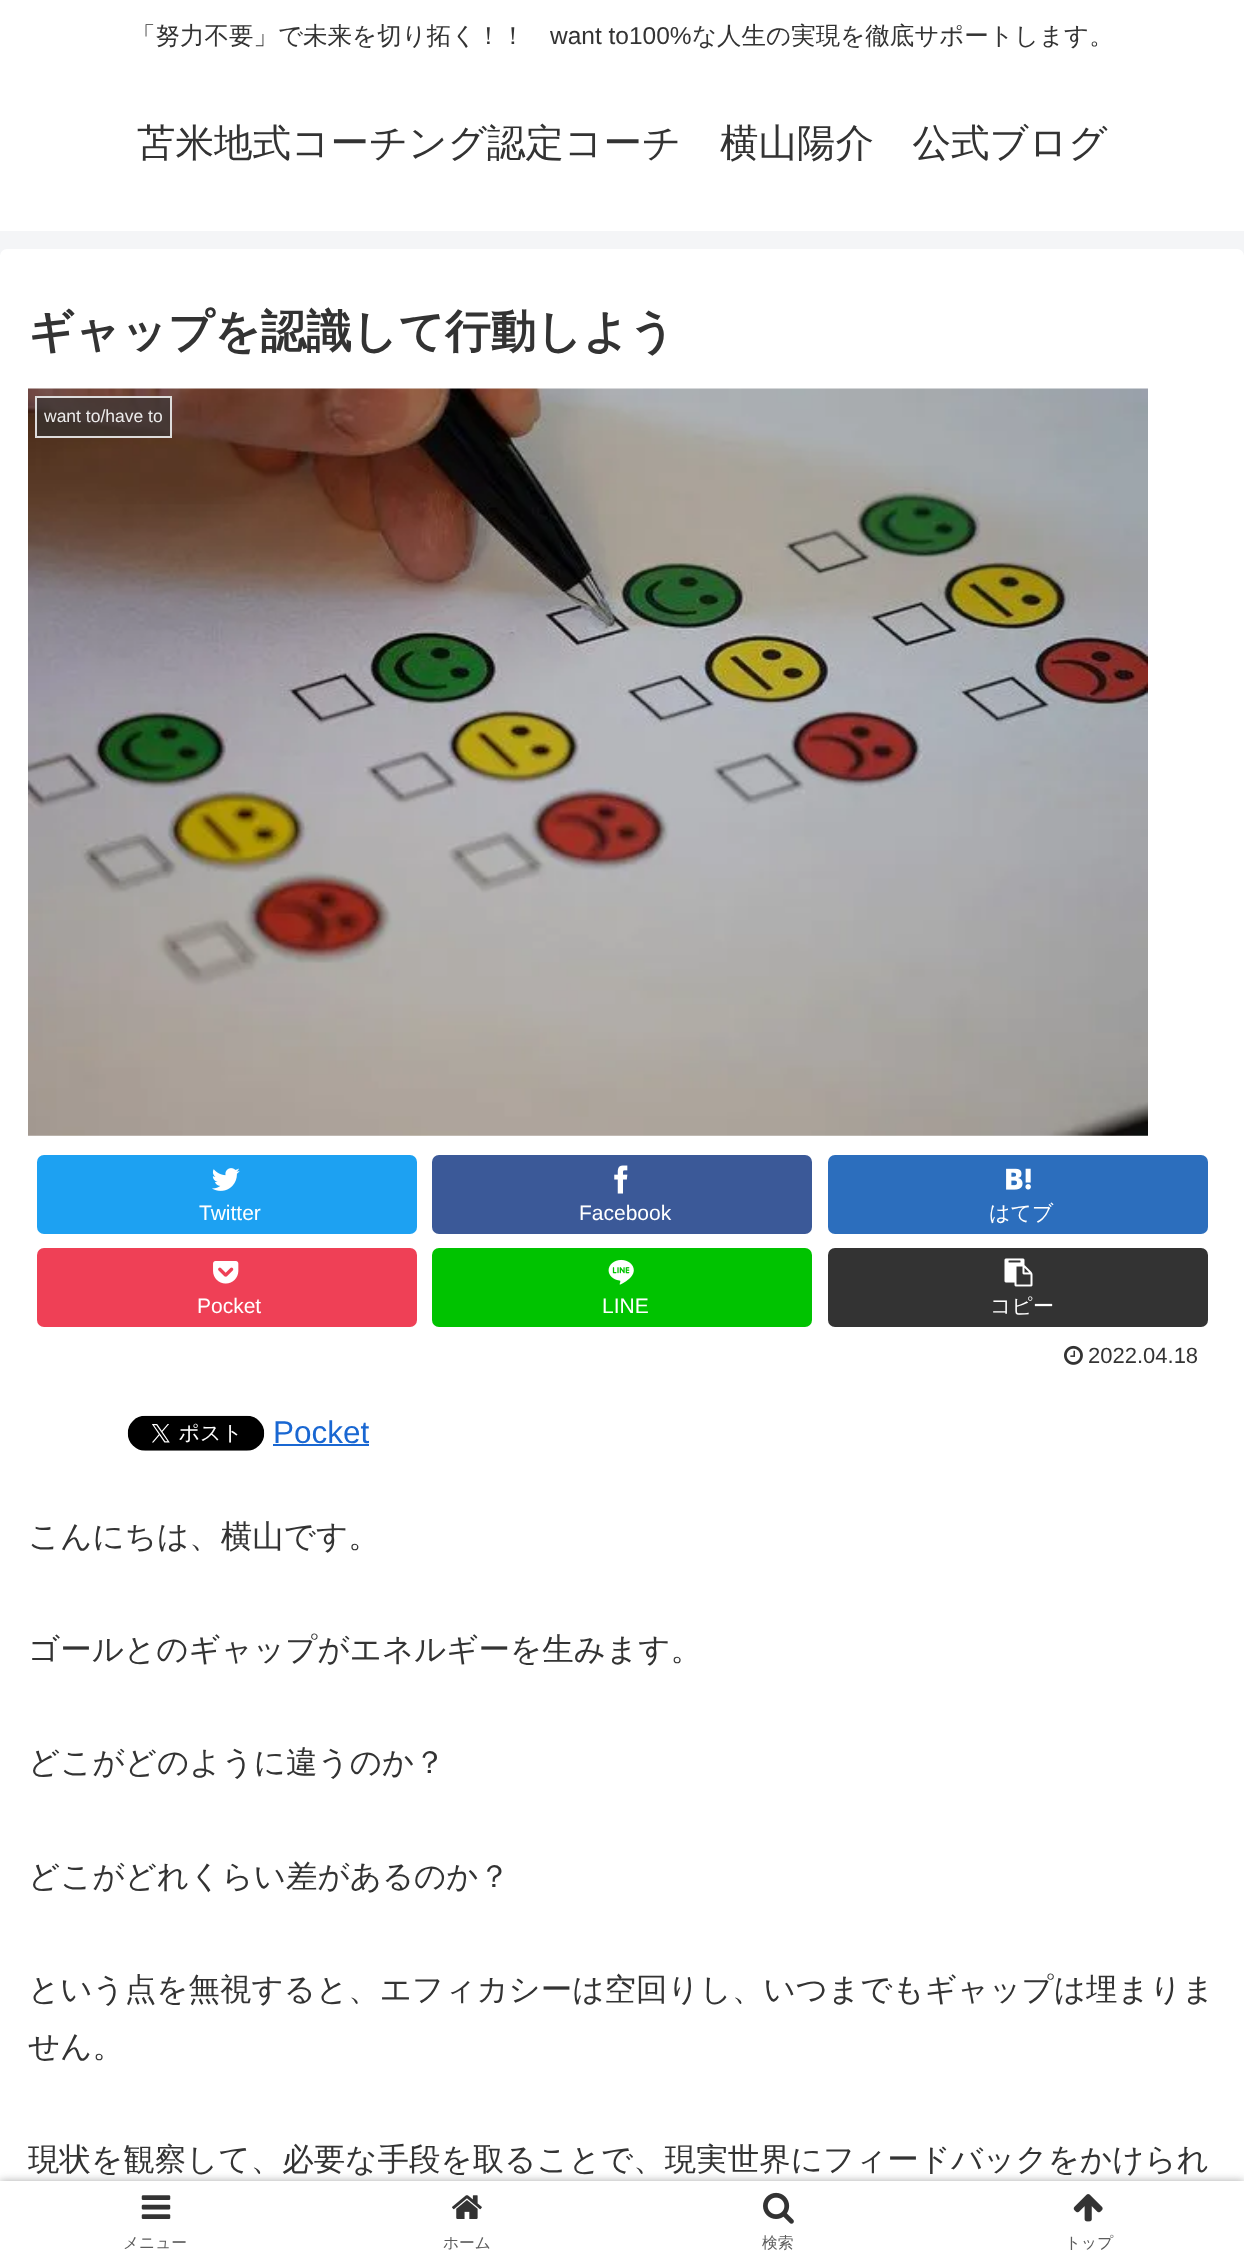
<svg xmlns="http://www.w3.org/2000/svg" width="1244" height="2267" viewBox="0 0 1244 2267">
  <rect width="100%" height="100%" fill="#f4f5f7"/>
  <path d="M0 0h1244v231H0z" fill="#fff"/>
  <rect y="249" width="1244" height="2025" rx="7" fill="#fff"/>
  <image x="28" y="388" width="1120" height="748" href="img/1.png"/>
  <path d="M35 396h137v42H35z" fill="#333333a1"/>
  <path d="M36 397h135v40H36z" fill="none" stroke="#eeeeeee6" stroke-width="2"/>
  <rect x="37" y="1155" width="380" height="79" rx="7" fill="#1da1f2"/>
  <image x="212" y="1168" width="28" height="23" href="img/2.png"/>
  <rect x="432" y="1155" width="380" height="79" rx="7" fill="#3b5998"/>
  <image x="614" y="1165" width="14" height="29" href="img/3.png"/>
  <rect x="828" y="1155" width="380" height="79" rx="7" fill="#2c6ebd"/>
  <image x="1006" y="1168" width="25" height="22" href="img/4.png"/>
  <rect x="37" y="1248" width="380" height="79" rx="7" fill="#ef4056"/>
  <image x="213" y="1261" width="26" height="23" href="img/5.png"/>
  <rect x="432" y="1248" width="380" height="79" rx="7" fill="#00c300"/>
  <image x="608" y="1259" width="26" height="26" href="img/6.png"/>
  <rect x="828" y="1248" width="380" height="79" rx="7" fill="#333"/>
  <image x="1004" y="1258" width="29" height="29" href="img/7.png"/>
  <image x="1064" y="1345" width="19" height="20" href="img/8.png"/>
  <image x="127" y="1415" width="138" height="36" href="img/9.png"/>
  <path d="M273 1444h96v2H273z" fill="#1967d2"/>
  <path d="M0 2181h1244v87H0z" fill="#a9a9a9" filter="blur(4.5px)"/>
  <path d="M0 2181h1244v86H0z" fill="#fff"/>
  <image x="141" y="2195" width="30" height="24" href="img/10.png"/>
  <image x="452" y="2195" width="30" height="24" href="img/11.png"/>
  <image x="763" y="2192" width="31" height="32" href="img/12.png"/>
  <image x="1073" y="2194" width="30" height="28" href="img/13.png"/>
  <text x="131" y="44" font-family="WenQuanYi Zen Hei" font-size="24.5" font-weight="500" fill="#333">「努力不要」で未来を切り拓く！！</text>
  <text x="550" y="44" font-family="Liberation Sans" font-size="24.5" fill="#333">want to100%</text>
  <text x="692" y="44" font-family="WenQuanYi Zen Hei" font-size="24.5" font-weight="500" fill="#333">な人生の実現を徹底サポートします。</text>
  <text x="137" y="156" font-family="WenQuanYi Zen Hei" font-size="38.5" font-weight="500" fill="#333">苫米地式コーチング認定コーチ　横山陽介　公式ブログ</text>
  <text x="28" y="347" font-family="WenQuanYi Zen Hei" font-size="45.5" font-weight="bold" fill="#333">ギャップを認識して行動しよう</text>
  <text x="44" y="422" font-family="Liberation Sans" font-size="17.5" fill="#ecebeb">want to/have to</text>
  <g font-family="Liberation Sans" font-size="21" fill="#fff">
    <text x="199" y="1220">Twitter</text>
    <text x="579" y="1220">Facebook</text>
  </g>
  <text x="989" y="1220" font-family="WenQuanYi Zen Hei" font-size="21" font-weight="500" fill="#fff">はてブ</text>
  <g font-family="Liberation Sans" font-size="21" fill="#fff">
    <text x="197" y="1313">Pocket</text>
    <text x="602" y="1313">LINE</text>
  </g>
  <text x="990" y="1313" font-family="WenQuanYi Zen Hei" font-size="21" font-weight="500" fill="#fff">コピー</text>
  <text x="1088" y="1363" font-family="Liberation Sans" font-size="22" fill="#333">2022.04.18</text>
  <text x="273" y="1443" font-family="Liberation Sans" font-size="31.5" fill="#1967d2">Pocket</text>
  <g font-family="WenQuanYi Zen Hei" font-size="31.5" font-weight="500" fill="#333">
    <text x="28" y="1547">こんにちは、横山です。</text>
    <text x="28" y="1660">ゴールとのギャップがエネルギーを生みます。</text>
    <text x="28" y="1773">どこがどのように違うのか？</text>
    <text x="28" y="1887">どこがどれくらい差があるのか？</text>
    <text x="28" y="2000">という点を無視すると、エフィカシーは空回りし、いつまでもギャップは埋まりま</text>
    <text x="28" y="2057">せん。</text>
    <text x="28" y="2170">現状を観察して、必要な手段を取ることで、現実世界にフィードバックをかけられ</text>
  </g>
  <g font-family="WenQuanYi Zen Hei" font-size="15.75" font-weight="500" fill="#5c5c5c">
    <text x="123" y="2248">メニュー</text>
    <text x="443" y="2248">ホーム</text>
    <text x="762" y="2248">検索</text>
    <text x="1065" y="2248">トップ</text>
  </g>
</svg>
